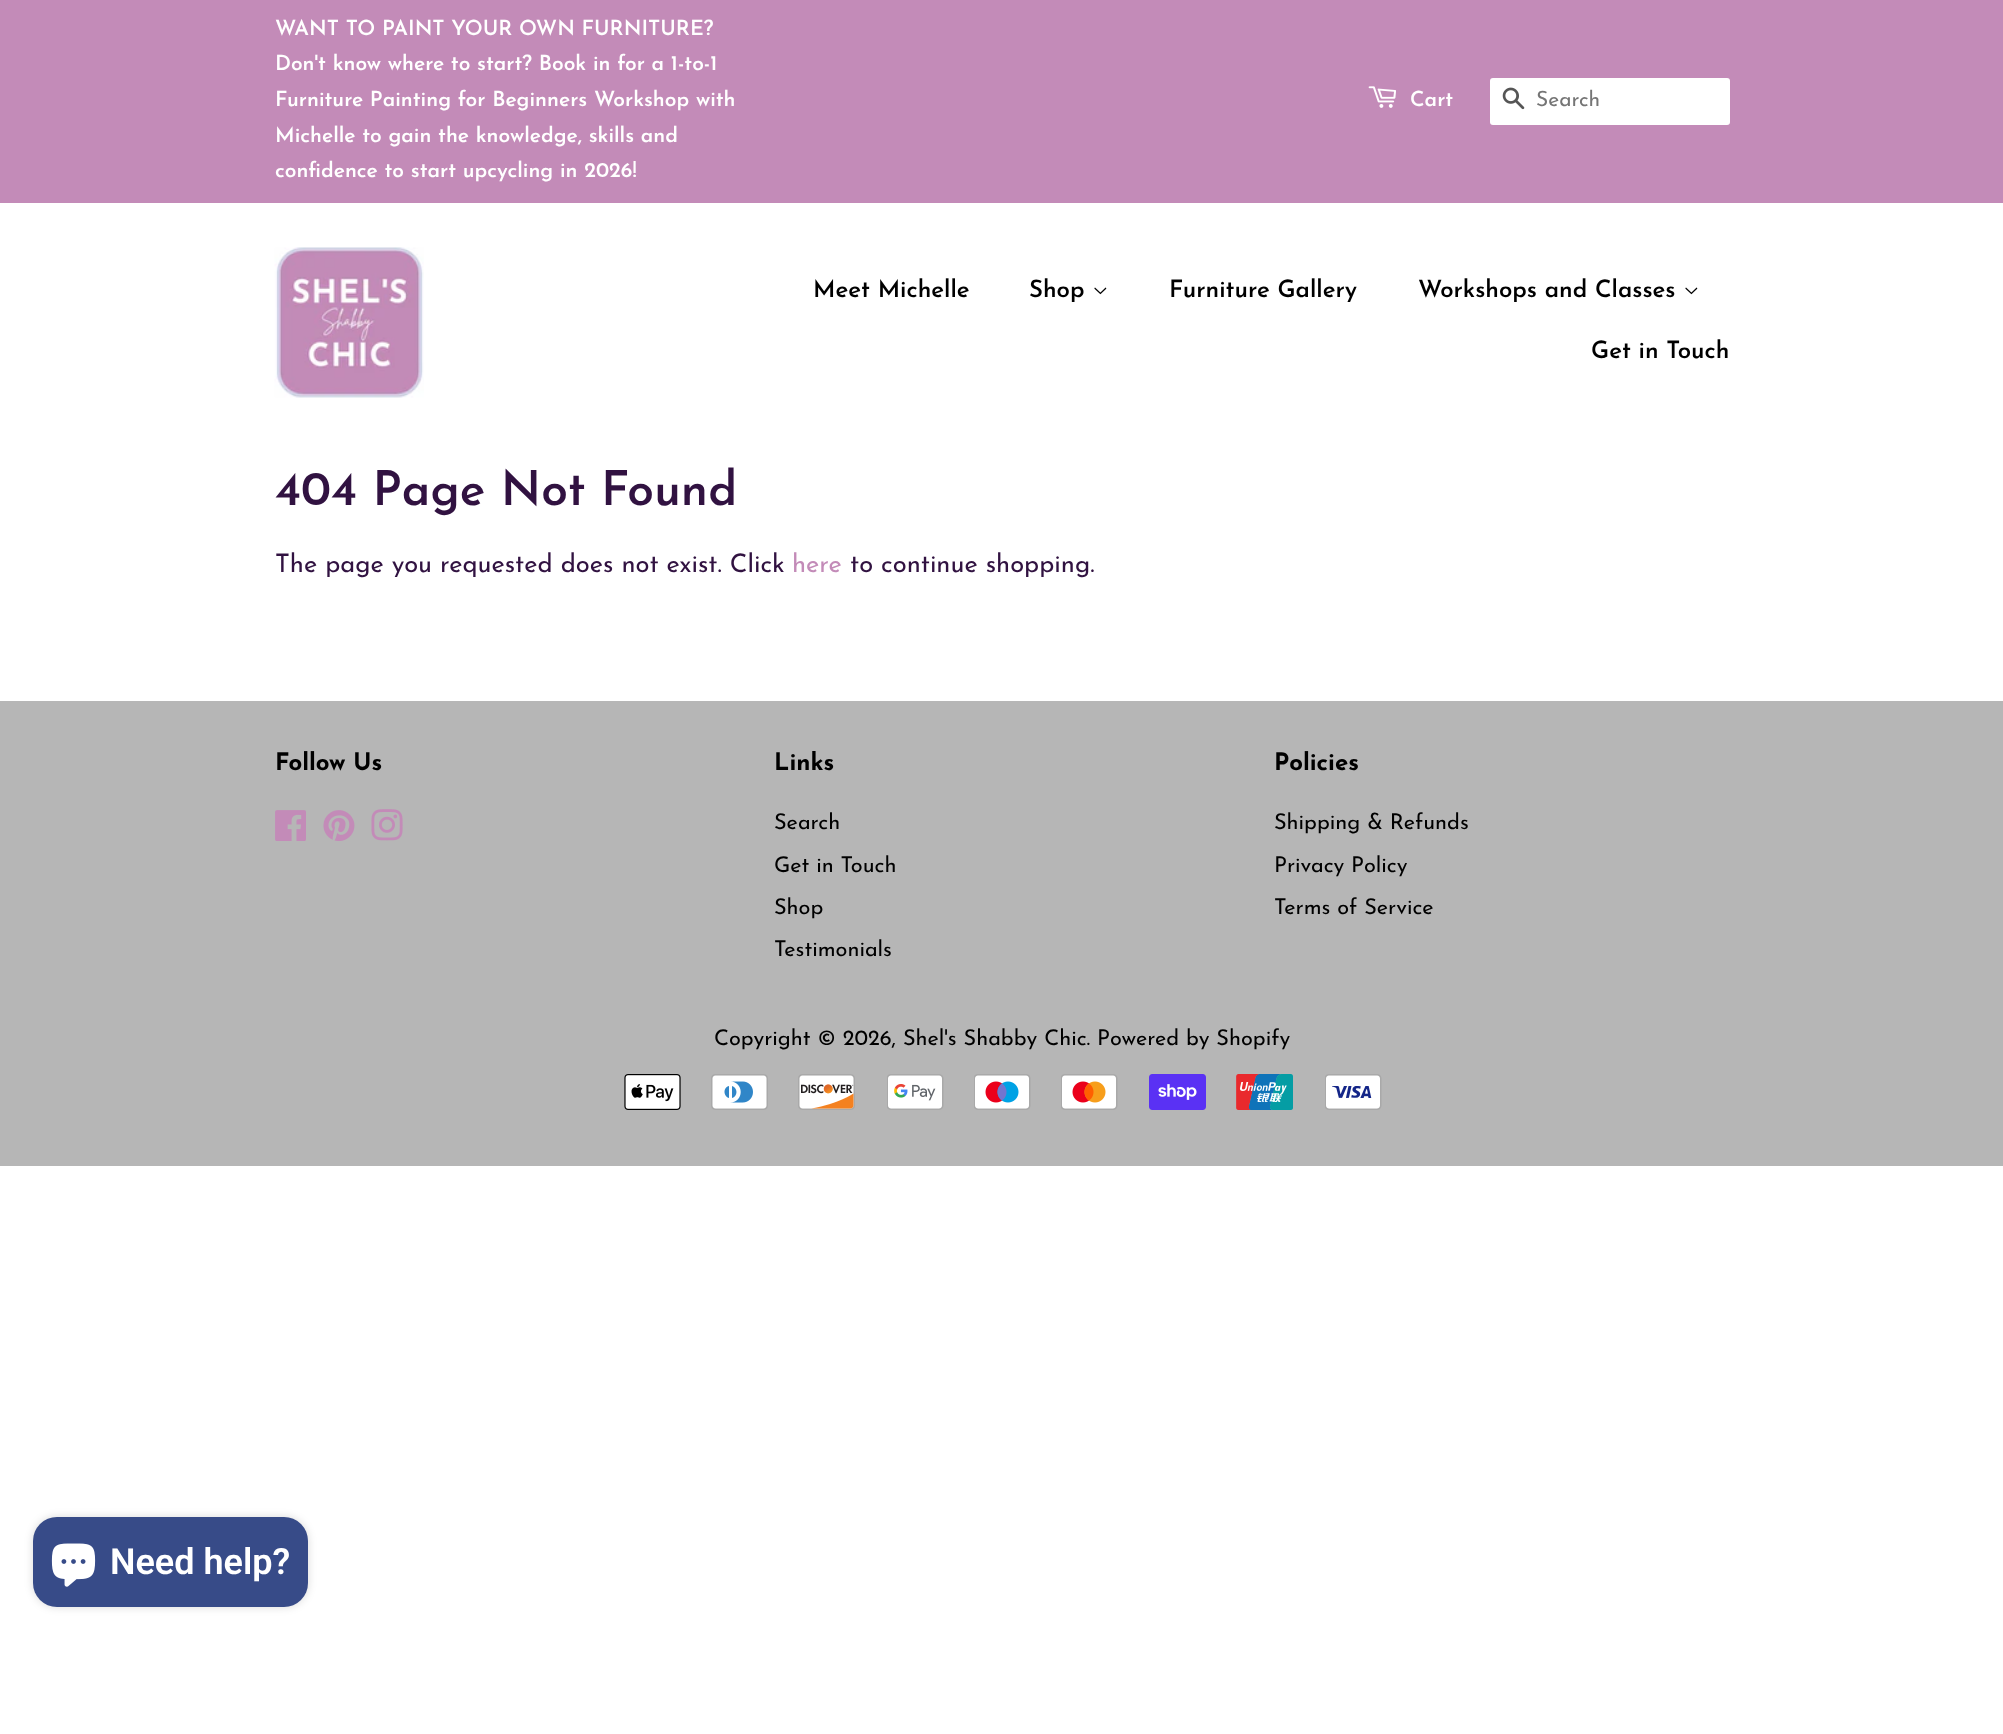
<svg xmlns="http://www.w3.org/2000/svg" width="2003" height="1734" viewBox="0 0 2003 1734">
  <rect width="100%" height="100%" fill="#fff"/>
  <path d="M0 0h2003v203H0z" fill="#c38bb8"/>
  <image x="1368" y="86" width="28" height="22" href="img/1.png"/>
  <rect x="1490" y="78" width="240" height="47" rx="3" fill="#fff"/>
  <image x="1502" y="87" width="23" height="23" href="img/2.png"/>
  <image x="274" y="247" width="150" height="151" href="img/3.png"/>
  <image x="1094" y="287" width="13" height="8" href="img/4.png"/>
  <image x="1685" y="287" width="13" height="8" href="img/4.png"/>
  <path d="M0 701h2003v465H0z" fill="#b6b6b6"/>
  <image x="275" y="810" width="31" height="31" href="img/5.png"/>
  <image x="323" y="810" width="32" height="31" href="img/6.png"/>
  <image x="371" y="809" width="32" height="32" href="img/7.png"/>
  <image x="624" y="1074" width="57" height="36" href="img/8.png"/>
  <image x="711" y="1074" width="57" height="36" href="img/9.png"/>
  <image x="798" y="1074" width="57" height="36" href="img/10.png"/>
  <image x="887" y="1074" width="57" height="36" href="img/11.png"/>
  <image x="974" y="1074" width="57" height="36" href="img/12.png"/>
  <image x="1061" y="1074" width="57" height="36" href="img/13.png"/>
  <image x="1149" y="1074" width="57" height="36" href="img/14.png"/>
  <image x="1236" y="1074" width="57" height="36" href="img/15.png"/>
  <image x="1325" y="1074" width="57" height="36" href="img/16.png"/>
  <rect x="33" y="1517" width="275" height="90" rx="24" fill="#00000026" filter="blur(4px)"/>
  <rect x="33" y="1517" width="275" height="90" rx="24" fill="#374b88"/>
  <image x="51" y="1543" width="45" height="44" href="img/17.png"/>
  <g font-family="Josefin Sans" font-size="21" font-weight="600" fill="#fff">
    <text x="275" y="35">WANT TO PAINT YOUR OWN FURNITURE?</text>
    <text x="275" y="70">Don't know where to start? Book in for a 1-to-1</text>
    <text x="275" y="106">Furniture Painting for Beginners Workshop with</text>
    <text x="275" y="142">Michelle to gain the knowledge, skills and</text>
    <text x="275" y="177">confidence to start upcycling in 2026!</text>
    <text x="1410" y="106">Cart</text>
  </g>
  <text x="1536" y="106" font-family="Josefin Sans" font-size="21" fill="#757575">Search</text>
  <g font-family="Josefin Sans" font-size="24" font-weight="600" fill="#000">
    <text x="813" y="297">Meet Michelle</text>
    <text x="1029" y="297">Shop</text>
    <text x="1169" y="297">Furniture Gallery</text>
    <text x="1418" y="297">Workshops and Classes</text>
    <text x="1591" y="358">Get in Touch</text>
  </g>
  <text x="275" y="505" font-family="Josefin Sans" font-size="48" font-weight="600" fill="#311241">404 Page Not Found</text>
  <text x="275" y="572" font-family="Josefin Sans" font-size="25.5" fill="#311241">The page you requested does not exist. Click</text>
  <text x="792" y="572" font-family="Josefin Sans" font-size="25.5" fill="#c38bb8">here</text>
  <text x="850" y="572" font-family="Josefin Sans" font-size="25.5" fill="#311241">to continue shopping.</text>
  <g font-family="Josefin Sans" font-size="24" font-weight="bold" fill="#000">
    <text x="275" y="770">Follow Us</text>
    <text x="774" y="770">Links</text>
  </g>
  <g font-family="Josefin Sans" font-size="21.7" fill="#000">
    <text x="774" y="829">Search</text>
    <text x="774" y="872">Get in Touch</text>
    <text x="774" y="914">Shop</text>
    <text x="774" y="956">Testimonials</text>
  </g>
  <text x="1274" y="770" font-family="Josefin Sans" font-size="24" font-weight="bold" fill="#000">Policies</text>
  <g font-family="Josefin Sans" font-size="21.7" fill="#000">
    <text x="1274" y="829">Shipping &amp; Refunds</text>
    <text x="1274" y="872">Privacy Policy</text>
    <text x="1274" y="914">Terms of Service</text>
    <text x="714" y="1045">Copyright © 2026, Shel's Shabby Chic. Powered by Shopify</text>
  </g>
  <text x="110" y="1574" font-family="Roboto" font-size="36" font-weight="600" fill="#fff">Need help?</text>
</svg>
